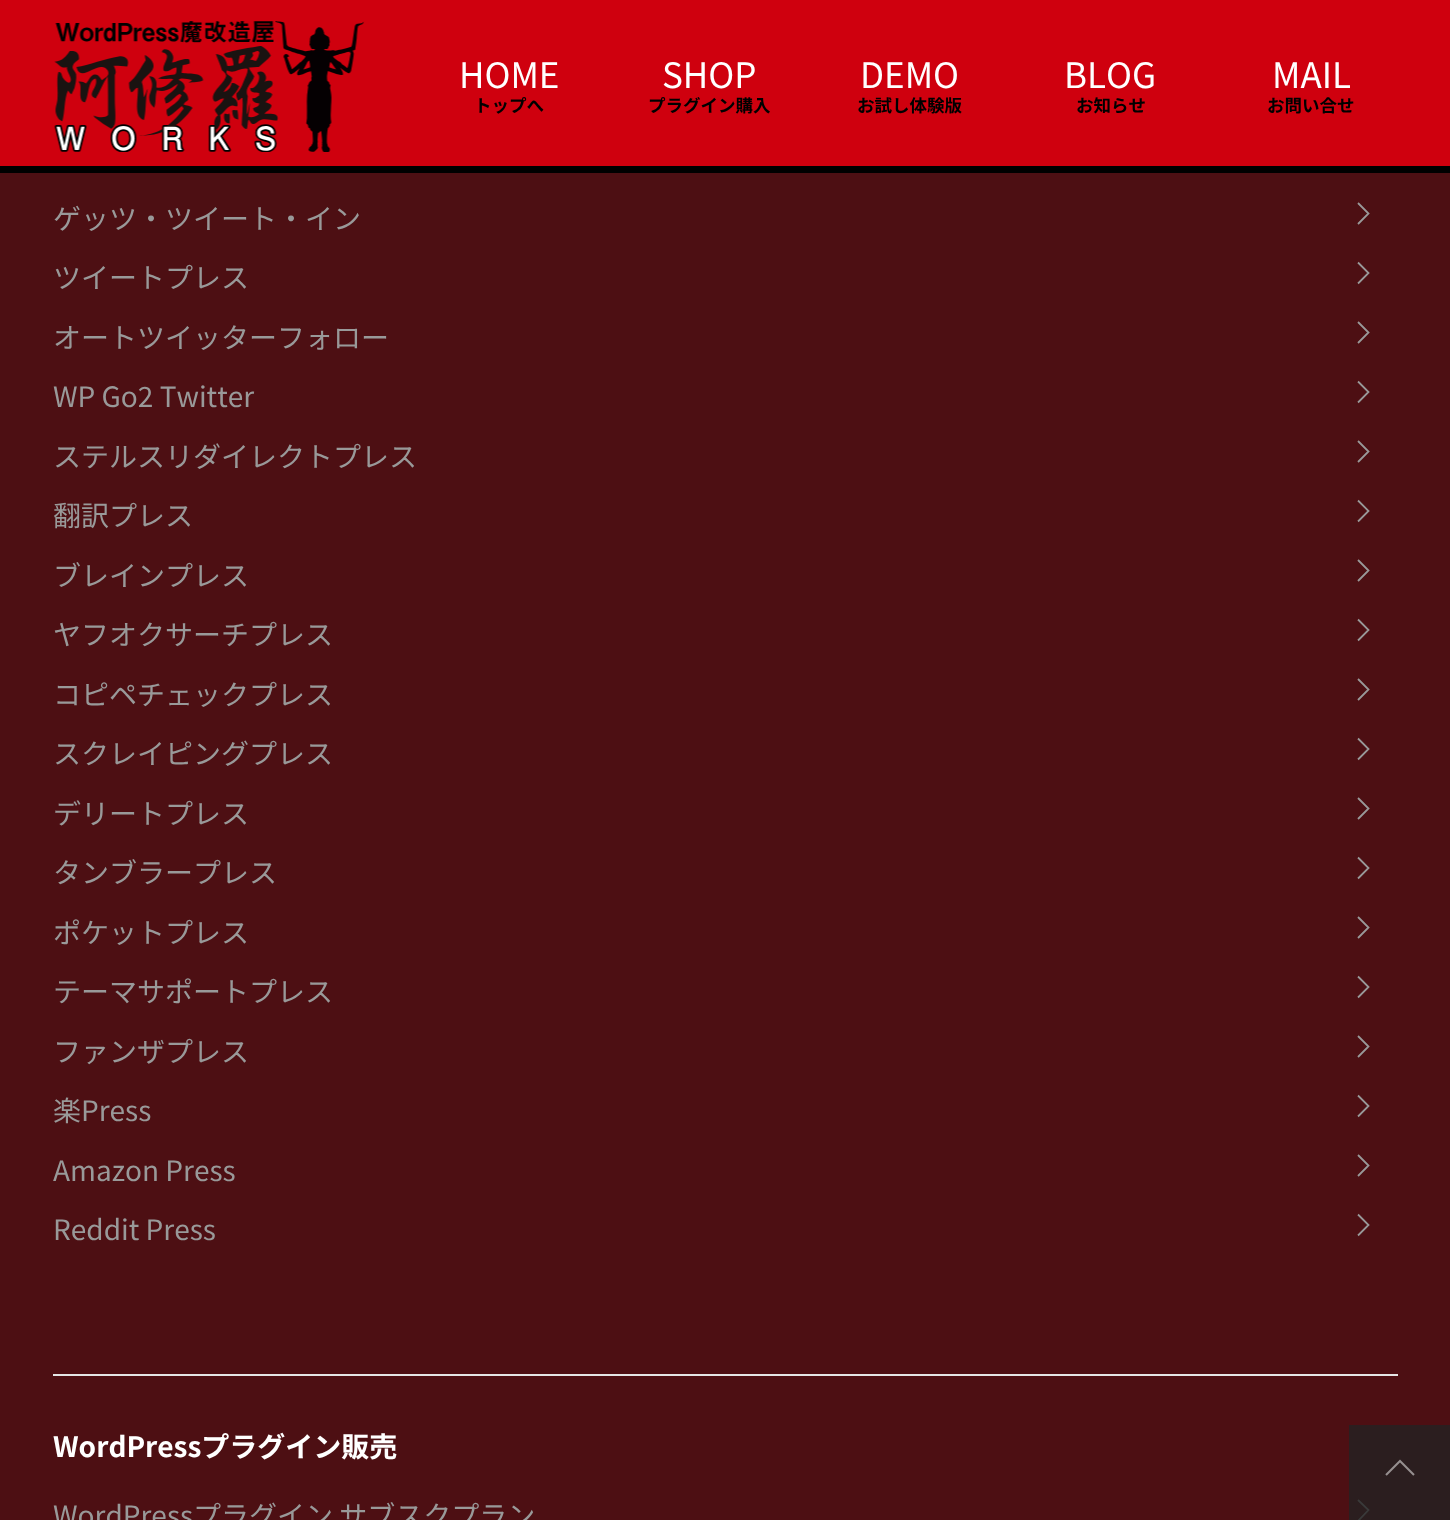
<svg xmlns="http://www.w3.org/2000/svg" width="1450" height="1520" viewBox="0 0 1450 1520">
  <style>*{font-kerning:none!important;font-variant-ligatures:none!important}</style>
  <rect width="100%" height="100%" fill="#4d0f13"/>
  <path d="M0 0h1450v166H0z" fill="#cf000e"/>
  <path d="M0 166h1450v7H0z" fill="#000"/>
  <image x="54" y="21" width="311" height="131" href="img/1.png"/>
  <path d="M1349 1425h101v95H1349z" fill="#2b1e1f"/>
  <path d="M1358 203L1368.5 213.5L1358 224" fill="none" stroke="#999" stroke-width="1.8"/>
  <path d="M1358 262.5L1368.5 273L1358 283.5" fill="none" stroke="#999" stroke-width="1.8"/>
  <path d="M1358 322L1368.5 332.5L1358 343" fill="none" stroke="#999" stroke-width="1.8"/>
  <path d="M1358 381.5L1368.5 392L1358 402.5" fill="none" stroke="#999" stroke-width="1.8"/>
  <path d="M1358 441L1368.5 451.5L1358 462" fill="none" stroke="#999" stroke-width="1.8"/>
  <path d="M1358 500.5L1368.5 511L1358 521.5" fill="none" stroke="#999" stroke-width="1.8"/>
  <path d="M1358 560L1368.5 570.5L1358 581" fill="none" stroke="#999" stroke-width="1.8"/>
  <path d="M1358 619.5L1368.5 630L1358 640.5" fill="none" stroke="#999" stroke-width="1.8"/>
  <path d="M1358 679L1368.5 689.5L1358 700" fill="none" stroke="#999" stroke-width="1.8"/>
  <path d="M1358 738.5L1368.5 749L1358 759.5" fill="none" stroke="#999" stroke-width="1.8"/>
  <path d="M1358 798L1368.5 808.5L1358 819" fill="none" stroke="#999" stroke-width="1.8"/>
  <path d="M1358 857.5L1368.5 868L1358 878.5" fill="none" stroke="#999" stroke-width="1.8"/>
  <path d="M1358 917L1368.5 927.5L1358 938" fill="none" stroke="#999" stroke-width="1.8"/>
  <path d="M1358 976.5L1368.5 987L1358 997.5" fill="none" stroke="#999" stroke-width="1.8"/>
  <path d="M1358 1036L1368.5 1046.5L1358 1057" fill="none" stroke="#999" stroke-width="1.8"/>
  <path d="M1358 1095.5L1368.5 1106L1358 1116.5" fill="none" stroke="#999" stroke-width="1.8"/>
  <path d="M1358 1155L1368.5 1165.5L1358 1176" fill="none" stroke="#999" stroke-width="1.8"/>
  <path d="M1358 1214.5L1368.5 1225L1358 1235.5" fill="none" stroke="#999" stroke-width="1.8"/>
  <path d="M53 1374h1345v2H53z" fill="#e5e5e5"/>
  <path d="M1358 1500L1368.5 1510L1358 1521" fill="none" stroke="#3a3a3a" stroke-width="1.8"/>
  <path d="M1386 1475L1400 1461L1414 1475" fill="none" stroke="#958f8f" stroke-width="2.1"/>
  <text x="459" y="88" font-family="Noto Sans JP" font-size="35" fill="#fff">HOME</text>
  <text x="474" y="112" font-family="Noto Sans JP" font-size="17.5" font-weight="bold" fill="#000">トップへ</text>
  <text x="662" y="88" font-family="Noto Sans JP" font-size="35" fill="#fff">SHOP</text>
  <text x="648" y="112" font-family="Noto Sans JP" font-size="17.5" font-weight="bold" fill="#000">プラグイン購入</text>
  <text x="860" y="88" font-family="Noto Sans JP" font-size="35" fill="#fff">DEMO</text>
  <text x="857" y="112" font-family="Noto Sans JP" font-size="17.5" font-weight="bold" fill="#000">お試し体験版</text>
  <text x="1064" y="88" font-family="Noto Sans JP" font-size="35" fill="#fff">BLOG</text>
  <text x="1076" y="112" font-family="Noto Sans JP" font-size="17.5" font-weight="bold" fill="#000">お知らせ</text>
  <text x="1272" y="88" font-family="Noto Sans JP" font-size="35" fill="#fff">MAIL</text>
  <text x="1267" y="112" font-family="Noto Sans JP" font-size="17.5" font-weight="bold" fill="#000">お問い合せ</text>
  <g font-family="Noto Sans JP" font-size="28" fill="#999">
    <text x="53" y="229">ゲッツ・ツイート・イン</text>
    <text x="53" y="288">ツイートプレス</text>
    <text x="53" y="348">オートツイッターフォロー</text>
    <text x="53" y="407">WP Go2 Twitter</text>
    <text x="53" y="467">ステルスリダイレクトプレス</text>
    <text x="53" y="526">翻訳プレス</text>
    <text x="53" y="586">ブレインプレス</text>
    <text x="53" y="645">ヤフオクサーチプレス</text>
    <text x="53" y="705">コピペチェックプレス</text>
    <text x="53" y="764">スクレイピングプレス</text>
    <text x="53" y="824">デリートプレス</text>
    <text x="53" y="883">タンブラープレス</text>
    <text x="53" y="943">ポケットプレス</text>
    <text x="53" y="1002">テーマサポートプレス</text>
    <text x="53" y="1062">ファンザプレス</text>
    <text x="53" y="1121">楽Press</text>
    <text x="53" y="1181">Amazon Press</text>
    <text x="53" y="1240">Reddit Press</text>
  </g>
  <text x="53" y="1457" font-family="Noto Sans JP" font-size="28" font-weight="bold" fill="#fff">WordPressプラグイン販売</text>
  <text x="53" y="1526" font-family="Noto Sans JP" font-size="28" fill="#999">WordPressプラグイン サブスクプラン</text>
</svg>
